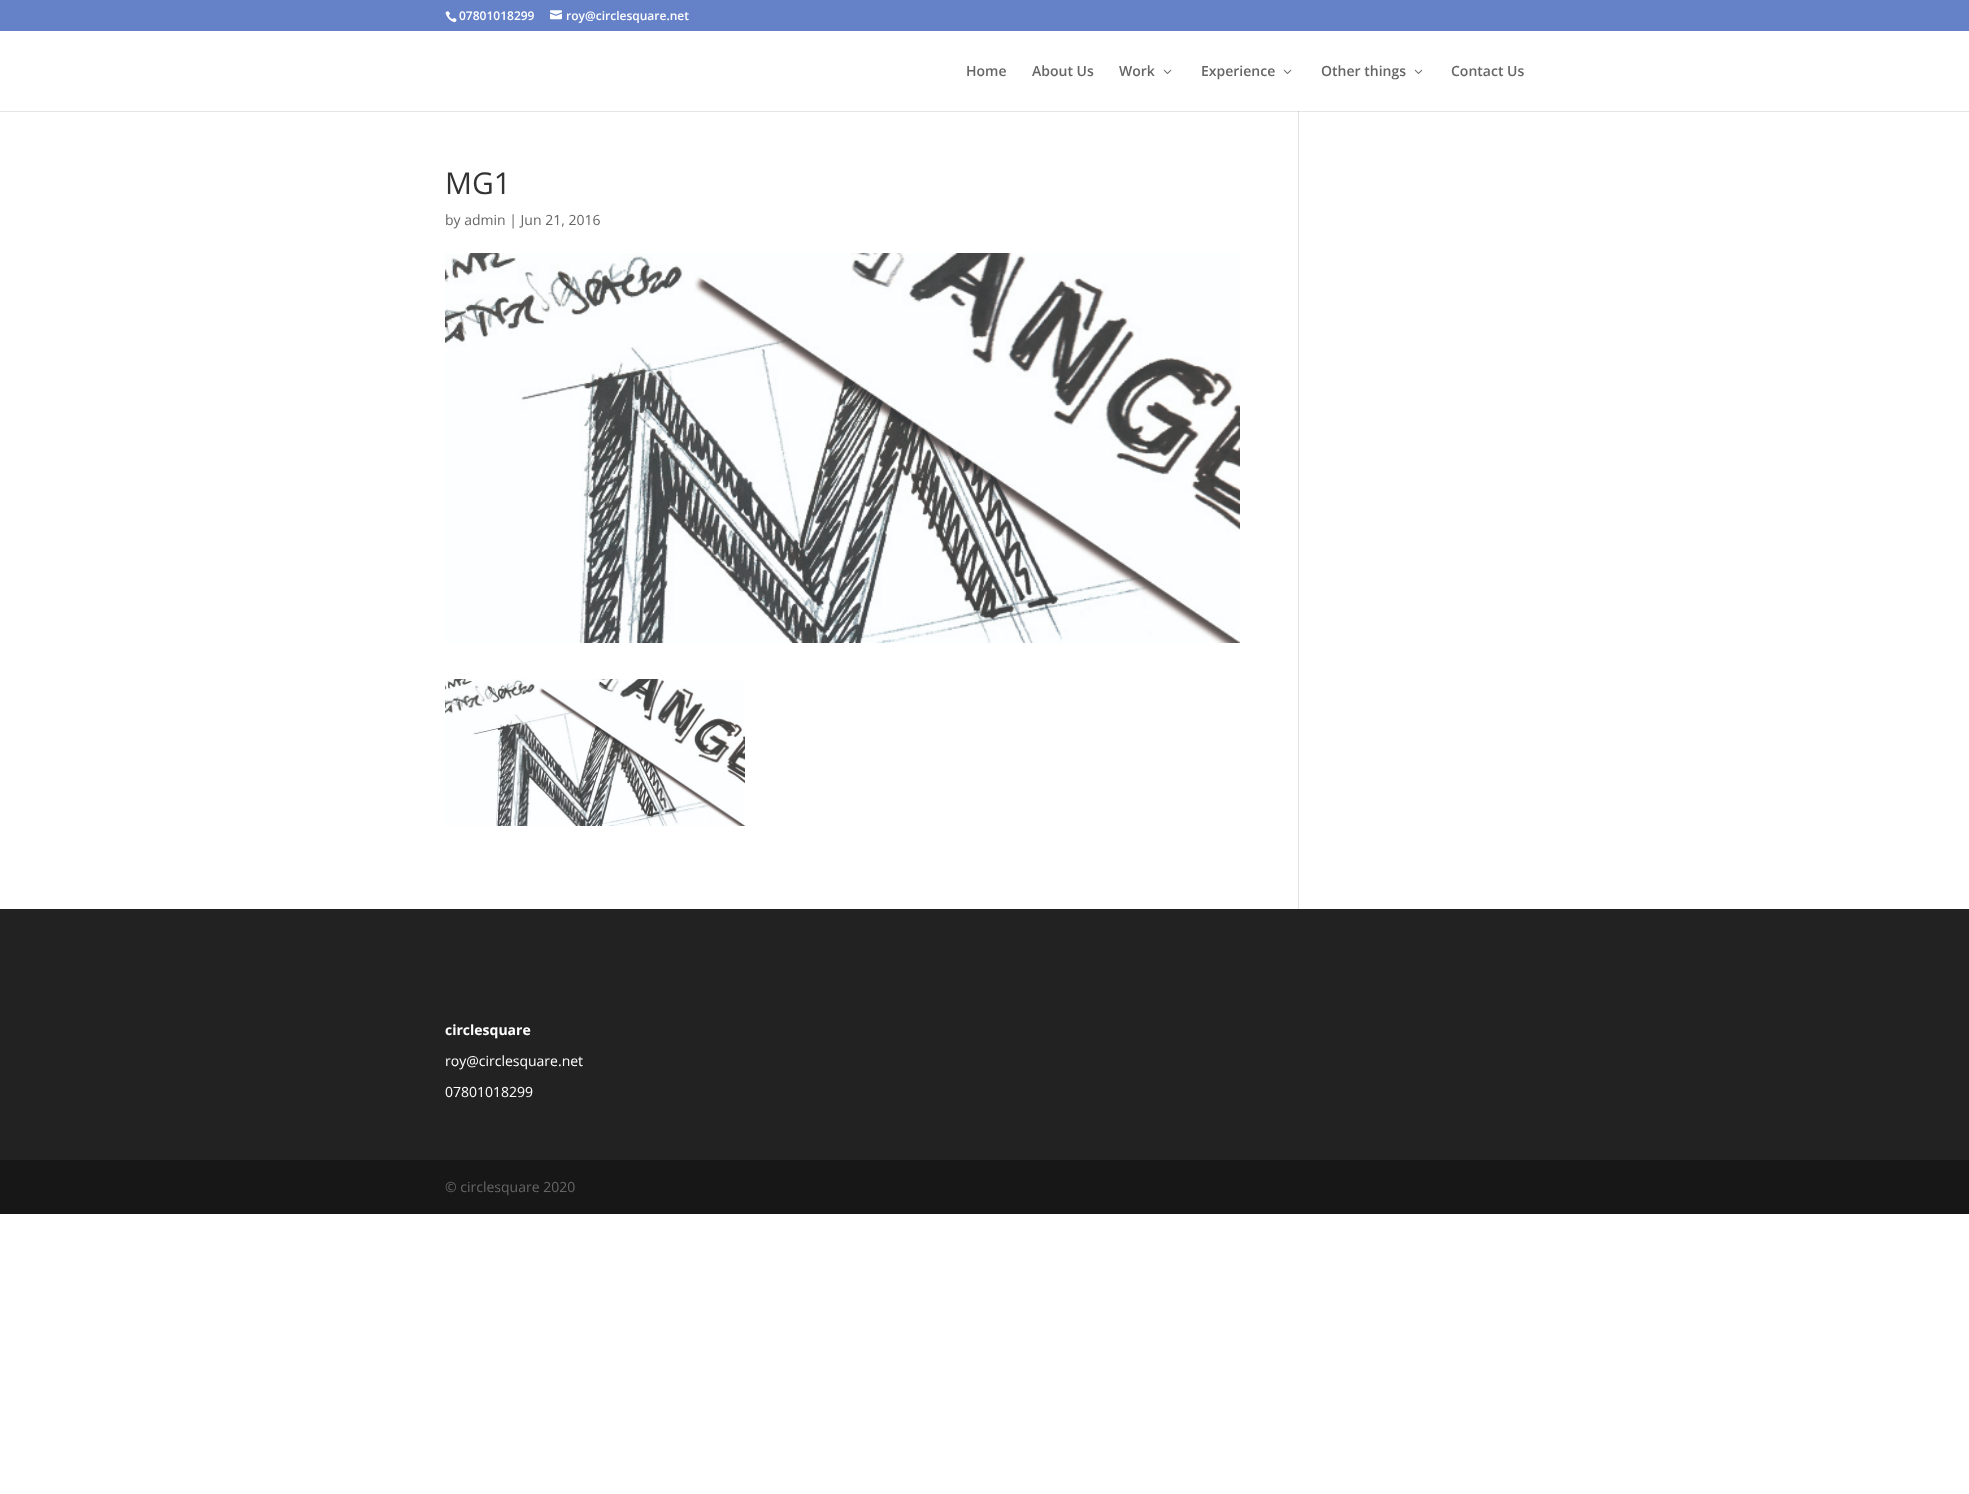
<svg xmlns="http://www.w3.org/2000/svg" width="1969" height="1494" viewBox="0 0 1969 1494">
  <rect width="100%" height="100%" fill="#fff"/>
  <path d="M0 111h1969v1H0z" fill="#e6e6e6"/>
  <path d="M0 0h1969v31H0z" fill="#6581c7"/>
  <image x="445" y="11" width="12" height="12" href="img/1.png"/>
  <image x="550" y="10" width="12" height="10" href="img/2.png"/>
  <path d="M1298 110h1v799H1298z" fill="#e2e2e2"/>
  <path d="M1298 110h1v1H1298z" fill="#fff"/>
  <image x="1163" y="69" width="9" height="5" href="img/3.png"/>
  <image x="1283" y="69" width="9" height="5" href="img/3.png"/>
  <image x="1414" y="69" width="9" height="5" href="img/3.png"/>
  <image x="445" y="253" width="795" height="390" href="img/4.png"/>
  <image x="445" y="679" width="300" height="147" href="img/5.png"/>
  <path d="M1298 111h1v1H1298z" fill="#cbcbcb"/>
  <path d="M0 909h1969v251H0z" fill="#222"/>
  <path d="M0 1160h1969v54H0z" fill="#171717"/>
  <g font-family="Open Sans" font-size="12" font-weight="600" fill="#fff">
    <text x="459" y="20">07801018299</text>
    <text x="566" y="20">roy@circlesquare.net</text>
  </g>
  <g font-family="Open Sans" font-size="14" font-weight="600" fill="#666">
    <text x="966" y="76">Home</text>
    <text x="1032" y="76">About Us</text>
    <text x="1119" y="76">Work</text>
    <text x="1201" y="76">Experience</text>
    <text x="1321" y="76">Other things</text>
    <text x="1451" y="76">Contact Us</text>
  </g>
  <text x="445" y="194" font-family="Open Sans" font-size="30" fill="#333">MG1</text>
  <text x="445" y="225" font-family="Open Sans" font-size="14" fill="#666">by admin | Jun 21, 2016</text>
  <text x="445" y="1035" font-family="Open Sans" font-size="14" font-weight="bold" fill="#fff">circlesquare</text>
  <g font-family="Open Sans" font-size="14" fill="#fff">
    <text x="445" y="1066">roy@circlesquare.net</text>
    <text x="445" y="1097">07801018299</text>
  </g>
  <text x="445" y="1192" font-family="Open Sans" font-size="14" fill="#666">© circlesquare 2020</text>
</svg>
